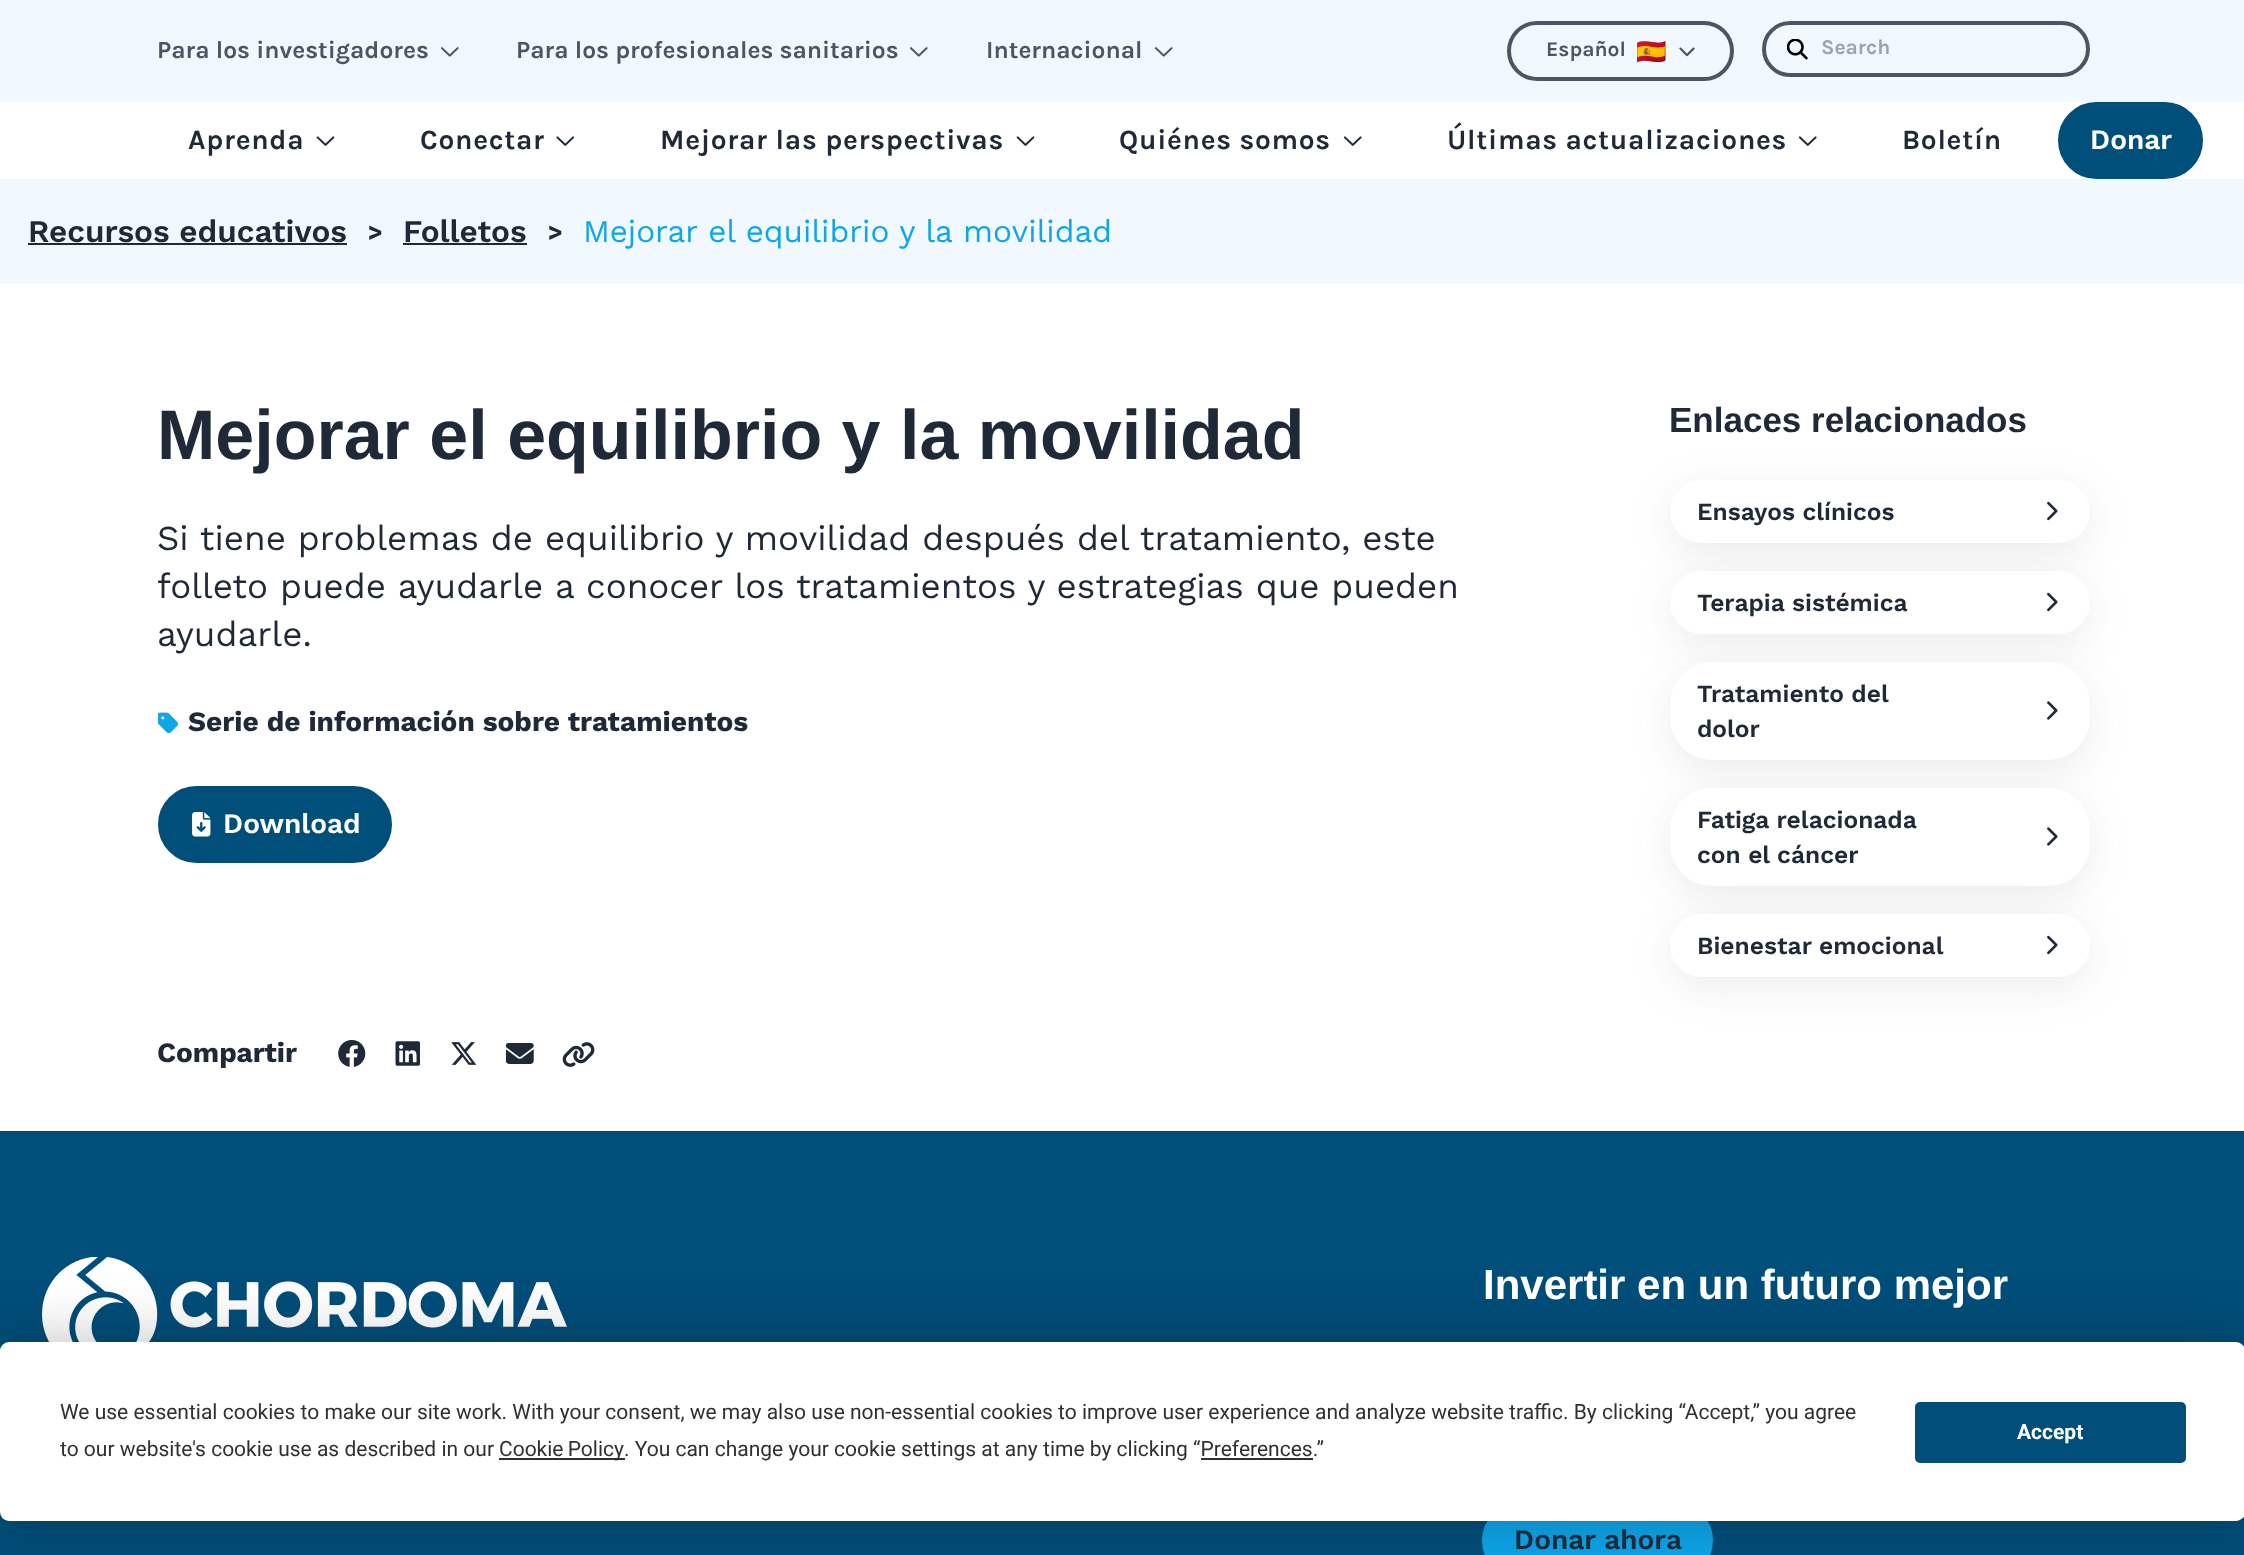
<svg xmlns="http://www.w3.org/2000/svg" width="2244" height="1555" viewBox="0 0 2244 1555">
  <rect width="100%" height="100%" fill="#fff"/>
  <path d="M0 0h2244v102H0z" fill="#f1f9fe"/>
  <image x="440" y="47" width="19" height="10" href="img/1.png"/>
  <image x="909" y="47" width="19" height="10" href="img/1.png"/>
  <image x="1154" y="47" width="19" height="10" href="img/1.png"/>
  <rect x="1509" y="23" width="223" height="56" rx="28" fill="none" stroke="#4b5563" stroke-width="4"/>
  <image x="1679" y="47" width="16" height="10" href="img/2.png"/>
  <image x="1787" y="39" width="21" height="21" href="img/3.png"/>
  <rect x="1764" y="23" width="324" height="52" rx="26" fill="none" stroke="#4b5563" stroke-width="4"/>
  <image x="316" y="136" width="19" height="10" href="img/4.png"/>
  <image x="556" y="136" width="19" height="10" href="img/5.png"/>
  <image x="1016" y="136" width="19" height="10" href="img/4.png"/>
  <image x="1343" y="136" width="19" height="10" href="img/6.png"/>
  <image x="1798" y="136" width="19" height="10" href="img/6.png"/>
  <rect x="2060" y="104" width="141" height="73" rx="36.5" fill="#004e7a" stroke="#004e7a" stroke-width="4"/>
  <path d="M0 179h2244v105H0z" fill="#f1f9fe"/>
  <path d="M28 243h319v2H28z" fill="#1f2937"/>
  <path d="M403 243h124v2H403z" fill="#1f2937"/>
  <image x="158" y="712" width="20" height="22" href="img/7.png"/>
  <rect x="160" y="788" width="230" height="73" rx="36.5" fill="#004e7a" stroke="#004e7a" stroke-width="4"/>
  <image x="192" y="812" width="19" height="25" href="img/8.png"/>
  <rect x="1670" y="490" width="420" height="63" rx="31.5" fill="#3741511a" filter="blur(21px)"/>
  <rect x="1670" y="480" width="420" height="63" rx="31.5" fill="#fff"/>
  <rect x="1670" y="581" width="420" height="63" rx="31.5" fill="#3741511a" filter="blur(21px)"/>
  <image x="2047" y="501" width="11" height="20" href="img/9.png"/>
  <rect x="1670" y="571" width="420" height="63" rx="31.5" fill="#fff"/>
  <rect x="1670" y="672" width="420" height="98" rx="42" fill="#3741511a" filter="blur(21px)"/>
  <image x="2047" y="592" width="11" height="20" href="img/9.png"/>
  <rect x="1670" y="662" width="420" height="98" rx="42" fill="#fff"/>
  <image x="2047" y="701" width="11" height="19" href="img/10.png"/>
  <rect x="1670" y="798" width="420" height="98" rx="42" fill="#3741511a" filter="blur(21px)"/>
  <rect x="1670" y="788" width="420" height="98" rx="42" fill="#fff"/>
  <image x="2047" y="827" width="11" height="19" href="img/10.png"/>
  <rect x="1670" y="924" width="420" height="63" rx="31.5" fill="#3741511a" filter="blur(21px)"/>
  <rect x="1670" y="914" width="420" height="63" rx="31.5" fill="#fff"/>
  <image x="2047" y="935" width="11" height="20" href="img/9.png"/>
  <image x="338" y="1040" width="28" height="27" href="img/11.png"/>
  <image x="395" y="1041" width="25" height="25" href="img/12.png"/>
  <image x="451" y="1042" width="26" height="23" href="img/13.png"/>
  <image x="506" y="1043" width="28" height="21" href="img/14.png"/>
  <image x="562" y="1042" width="33" height="25" href="img/15.png"/>
  <path d="M0 1131h2244v424H0z" fill="#004e7a"/>
  <image x="42" y="1257" width="525" height="85" href="img/16.png"/>
  <rect x="1484" y="1504" width="227" height="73" rx="36.5" fill="#0ea5e9" stroke="#0ea5e9" stroke-width="4"/>
  <rect y="1342" width="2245" height="179" rx="9" fill="#00000040" filter="blur(30.5px)"/>
  <rect y="1342" width="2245" height="179" rx="9" fill="#fff"/>
  <path d="M499 1458h126v2H499z" fill="#303030"/>
  <path d="M1201 1458h112v2H1201z" fill="#303030"/>
  <rect x="1916" y="1403" width="269" height="59" rx="4" fill="#004e79" stroke="#004e79" stroke-width="2"/>
  <g font-family="Karla" font-size="24.5" font-weight="bold" fill="#4b5563">
    <text x="157" y="58">Para los investigadores</text>
    <text x="516" y="58">Para los profesionales sanitarios</text>
    <text x="986" y="58">Internacional</text>
  </g>
  <text x="1546" y="56" font-family="Karla" font-size="21" font-weight="bold" fill="#4b5563">Español</text>
  <text x="1636" y="60" font-family="Noto Color Emoji" font-size="24.5" fill="#4b5563">🇪🇸</text>
  <text x="1821" y="54" font-family="Karla" font-size="21" font-weight="bold" fill="#9ca3af">Search</text>
  <g font-family="Karla" font-size="28" font-weight="bold" letter-spacing="0.7" fill="#1f2937">
    <text x="188" y="149">Aprenda</text>
    <text x="420" y="149">Conectar</text>
    <text x="660" y="149">Mejorar las perspectivas</text>
    <text x="1119" y="149">Quiénes somos</text>
    <text x="1447" y="149">Últimas actualizaciones</text>
    <text x="1902" y="149">Boletín</text>
  </g>
  <text x="2090" y="149" font-family="Work Sans" font-size="28" font-weight="600" fill="#fff">Donar</text>
  <text x="28" y="242" font-family="Work Sans" font-size="31.5" font-weight="600" fill="#1f2937">Recursos educativos</text>
  <text x="368" y="240" font-family="Work Sans" font-size="24.5" font-weight="bold" fill="#1f2937">&gt;</text>
  <text x="403" y="242" font-family="Work Sans" font-size="31.5" font-weight="600" fill="#1f2937">Folletos</text>
  <text x="548" y="240" font-family="Work Sans" font-size="24.5" font-weight="bold" fill="#1f2937">&gt;</text>
  <text x="583" y="242" font-family="Work Sans" font-size="31.5" fill="#0ea5e9">Mejorar el equilibrio y la movilidad</text>
  <text x="157" y="459" font-family="Liberation Sans" font-size="70" font-weight="bold" fill="#1f2937">Mejorar el equilibrio y la movilidad</text>
  <g font-family="Work Sans" font-size="35" fill="#1f2937">
    <text x="157" y="550">Si tiene problemas de equilibrio y movilidad después del tratamiento, este</text>
    <text x="157" y="598">folleto puede ayudarle a conocer los tratamientos y estrategias que pueden</text>
    <text x="157" y="646">ayudarle.</text>
  </g>
  <text x="188" y="731" font-family="Work Sans" font-size="28" font-weight="bold" fill="#1f2937">Serie de información sobre tratamientos</text>
  <text x="223" y="833" font-family="Work Sans" font-size="28" font-weight="600" fill="#fff">Download</text>
  <text x="1669" y="432" font-family="Liberation Sans" font-size="35" font-weight="bold" fill="#1f2937">Enlaces relacionados</text>
  <g font-family="Work Sans" font-size="24.5" font-weight="600" fill="#1f2937">
    <text x="1697" y="520">Ensayos clínicos</text>
    <text x="1697" y="611">Terapia sistémica</text>
    <text x="1697" y="702">Tratamiento del</text>
    <text x="1697" y="737">dolor</text>
    <text x="1697" y="828">Fatiga relacionada</text>
    <text x="1697" y="863">con el cáncer</text>
    <text x="1697" y="954">Bienestar emocional</text>
  </g>
  <text x="157" y="1062" font-family="Work Sans" font-size="28" font-weight="bold" fill="#1f2937">Compartir</text>
  <text x="1483" y="1299" font-family="Liberation Sans" font-size="42" font-weight="bold" fill="#fff">Invertir en un futuro mejor</text>
  <text x="1514" y="1549" font-family="Work Sans" font-size="28" font-weight="600" fill="#1f2937">Donar ahora</text>
  <g font-family="Roboto" font-size="21" fill="#303030">
    <text x="60" y="1419">We use essential cookies to make our site work. With your consent, we may also use non-essential cookies to improve user experience and analyze website traffic. By clicking “Accept,” you agree</text>
    <text x="60" y="1456">to our website's cookie use as described in our</text>
    <text x="499" y="1456" word-spacing="-1">Cookie Policy</text>
    <text x="624" y="1456">. You can change your cookie settings at any time by clicking “Preferences.”</text>
  </g>
  <text x="2017" y="1439" font-family="Roboto" font-size="21" font-weight="bold" fill="#fff">Accept</text>
</svg>
